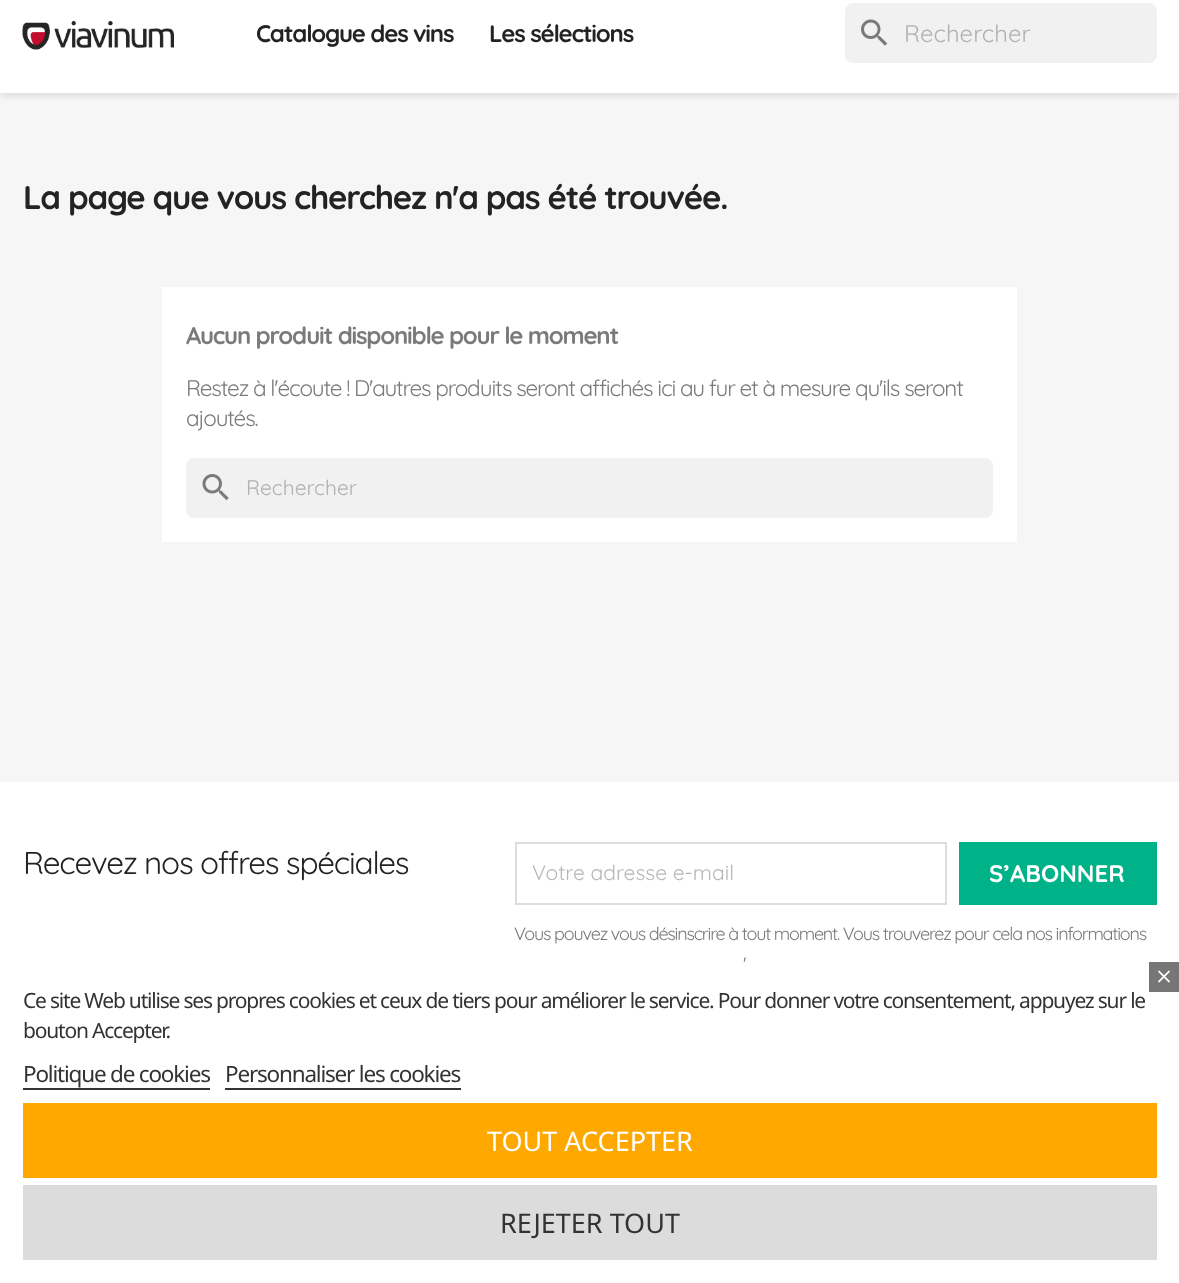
<svg xmlns="http://www.w3.org/2000/svg" width="1179" height="1283" viewBox="0 0 1179 1283">
  <defs>
    <clipPath id="clip1"><path d="M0 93h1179v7H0z"/></clipPath>
    <clipPath id="clip2"><path d="M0 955h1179v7H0z"/></clipPath>
  </defs>
  <rect width="100%" height="100%" fill="#fff"/>
  <path d="M0 93h1179v689H0z" fill="#f6f6f6"/>
  <g clip-path="url(#clip1)">
    <path d="M0 -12h1179v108H0z" fill="#0000001c" filter="blur(4px)"/>
  </g>
  <image x="22" y="21" width="152" height="29" href="img/1.png"/>
  <rect x="845" y="3" width="312" height="60" rx="8" fill="#f1f1f1"/>
  <image x="861" y="19" width="27" height="27" href="img/2.png"/>
  <path d="M162 287h855v255H162z" fill="#fff"/>
  <rect x="186" y="458" width="807" height="60" rx="8" fill="#f1f1f1"/>
  <image x="202" y="474" width="27" height="27" href="img/3.png"/>
  <path d="M516 843h430v61H516z" fill="none" stroke="#ddd" stroke-width="2"/>
  <path d="M959 842h198v63H959z" fill="#00b288"/>
  <g clip-path="url(#clip2)">
    <path d="M0 963h1179v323H0z" fill="#fff" filter="blur(4px)"/>
  </g>
  <path d="M1149 962h30v30H1149z" fill="#767676"/>
  <image x="1158" y="970" width="12" height="13" href="img/4.png"/>
  <path d="M23 1088h187v2H23z" fill="#333"/>
  <path d="M225 1088h236v2H225z" fill="#333"/>
  <path d="M23 1103h1134v75H23z" fill="#ffa800"/>
  <path d="M23 1185h1134v75H23z" fill="#dcdcdc"/>
  <g font-family="Quicksand" font-size="24" font-weight="bold" letter-spacing="-1.2" fill="#232323">
    <text x="256" y="42">Catalogue des vins</text>
    <text x="489" y="42">Les sélections</text>
  </g>
  <text x="904" y="42" font-family="Quicksand" font-size="24" fill="#b1b1b1">Rechercher</text>
  <text x="23" y="209" font-family="Quicksand" font-size="33" font-weight="bold" letter-spacing="-1.2" fill="#232323">La page que vous cherchez n'a pas été trouvée.</text>
  <text x="186" y="344" font-family="Quicksand" font-size="24" font-weight="bold" letter-spacing="-1.2" fill="#7a7a7a">Aucun produit disponible pour le moment</text>
  <g font-family="Quicksand" font-size="22.5" letter-spacing="-1.2" fill="#7a7a7a">
    <text x="186" y="396">Restez à l'écoute ! D'autres produits seront affichés ici au fur et à mesure qu'ils seront</text>
    <text x="186" y="426">ajoutés.</text>
  </g>
  <text x="246" y="495" font-family="Quicksand" font-size="21" fill="#b1b1b1">Rechercher</text>
  <text x="23" y="874" font-family="Quicksand" font-size="31.5" letter-spacing="-1.2" fill="#232323">Recevez nos offres spéciales</text>
  <text x="532" y="880" font-family="Quicksand" font-size="21" fill="#b7b7b7">Votre adresse e-mail</text>
  <text x="989" y="882" font-family="Quicksand" font-size="24" font-weight="bold" fill="#fff">S’ABONNER</text>
  <g font-family="Quicksand" font-size="18" letter-spacing="-1.2" fill="#7a7a7a">
    <text x="514" y="940">Vous pouvez vous désinscrire à tout moment. Vous trouverez pour cela nos informations</text>
    <text x="743" y="970">'</text>
  </g>
  <path d="M744 962h1v1H744z" fill="#fefefee6"/>
  <g font-family="Noto Sans" font-size="21" letter-spacing="-1.2" fill="#333">
    <text x="23" y="1008">Ce site Web utilise ses propres cookies et ceux de tiers pour améliorer le service. Pour donner votre consentement, appuyez sur le</text>
    <text x="23" y="1038">bouton Accepter.</text>
  </g>
  <g font-family="Noto Sans" font-size="22.5" letter-spacing="-1.2" fill="#333">
    <text x="23" y="1082">Politique de cookies</text>
    <text x="225" y="1082">Personnaliser les cookies</text>
  </g>
  <text x="487" y="1151" font-family="Noto Sans" font-size="27" fill="#fff">TOUT ACCEPTER</text>
  <text x="500" y="1233" font-family="Noto Sans" font-size="27" fill="#333">REJETER TOUT</text>
</svg>
